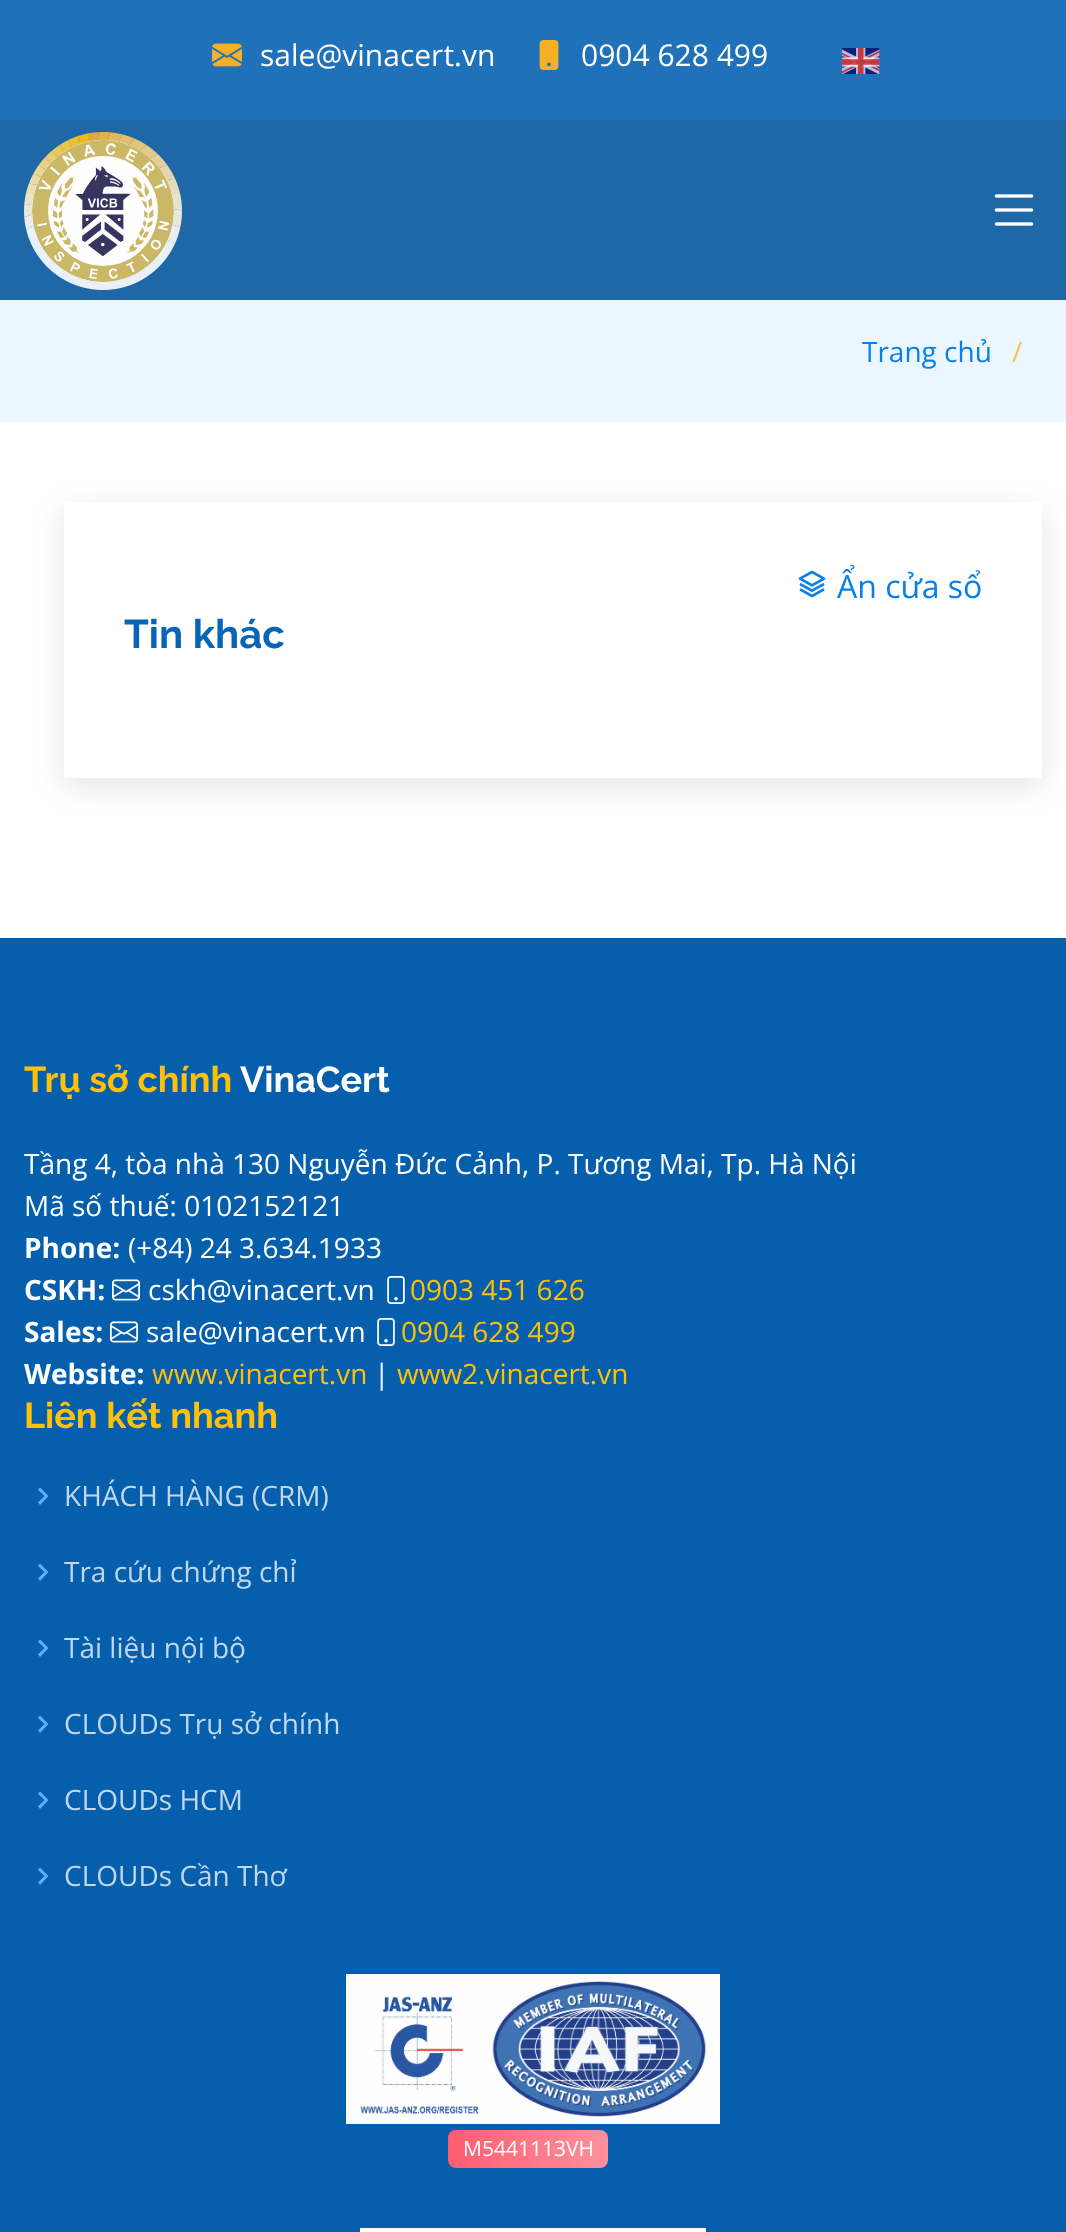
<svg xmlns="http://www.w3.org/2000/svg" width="1066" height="2232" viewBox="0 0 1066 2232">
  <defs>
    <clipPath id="clip1"><path d="M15 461H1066V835H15ZM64 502H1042V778H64Z" clip-rule="evenodd"/></clipPath>
    <linearGradient id="g1" gradientUnits="userSpaceOnUse" x1="448" y1="2149" x2="608" y2="2149"><stop offset="0" stop-color="#fe5d70"/><stop offset="1" stop-color="#fe909d"/></linearGradient>
  </defs>
  <rect width="100%" height="100%" fill="#fff"/>
  <path d="M0 0h1066v120H0z" fill="#1f72ba"/>
  <image x="212" y="43" width="30" height="24" href="img/1.png"/>
  <image x="539" y="40" width="20" height="30" href="img/2.png"/>
  <image x="842" y="48" width="38" height="26" href="img/3.png"/>
  <path d="M0 120h1066v180H0z" fill="#1e68a8"/>
  <image x="24" y="132" width="158" height="158" href="img/4.png"/>
  <circle cx="103" cy="211" r="71" fill="#fff"/>
  <image x="32" y="140" width="142" height="142" href="img/5.png"/>
  <image x="994" y="194" width="40" height="32" href="img/6.png"/>
  <path d="M0 300h1066v122H0z" fill="#ecf6fe"/>
  <g clip-path="url(#clip1)">
    <path d="M64 510h978v276H64z" fill="#0000001a" filter="blur(16px)"/>
  </g>
  <image x="798" y="570" width="28" height="28" href="img/7.png"/>
  <path d="M0 938h1066v1294H0z" fill="#065fad"/>
  <image x="112" y="1279" width="28" height="22" href="img/8.png"/>
  <image x="387" y="1276" width="18" height="28" href="img/9.png"/>
  <image x="110" y="1321" width="28" height="22" href="img/8.png"/>
  <image x="377" y="1318" width="18" height="28" href="img/9.png"/>
  <path d="M40 1505L48.5 1496L40 1487.5L38 1490L44.5 1496L38 1502.5Z" fill="#5db1f9"/>
  <path d="M40 1581L48.5 1572L40 1563.5L38 1566L44.5 1572L38 1578.5Z" fill="#5db1f9"/>
  <path d="M40 1657L48.5 1648L40 1639.5L38 1642L44.5 1648L38 1654.5Z" fill="#5db1f9"/>
  <path d="M40 1733L48.5 1724L40 1715.5L38 1718L44.5 1724L38 1730.5Z" fill="#5db1f9"/>
  <path d="M40 1809L48.5 1800L40 1791.5L38 1794L44.5 1800L38 1806.5Z" fill="#5db1f9"/>
  <path d="M40 1885L48.5 1876L40 1867.5L38 1870L44.5 1876L38 1882.5Z" fill="#5db1f9"/>
  <image x="346" y="1974" width="374" height="150" href="img/10.png"/>
  <rect x="448" y="2130" width="160" height="38" rx="8" fill="url(#g1)"/>
  <path d="M360 2228h346v4H360z" fill="#fff"/>
  <g font-family="Open Sans" font-size="30" fill="#fff">
    <text x="260" y="66">sale@vinacert.vn</text>
    <text x="581" y="66">0904 628 499</text>
  </g>
  <text x="862" y="362" font-family="Open Sans" font-size="28" fill="#0880e8">Trang chủ</text>
  <text x="1012" y="362" font-family="Open Sans" font-size="28" fill="#f8c255">/</text>
  <text x="837" y="598" font-family="Open Sans" font-size="32" fill="#0880e8">Ẩn cửa sổ</text>
  <text x="124" y="648" font-family="Raleway" font-size="40" font-weight="bold" fill="#0665b7">Tin khác</text>
  <text x="24" y="1092" font-family="Raleway" font-size="36" font-weight="bold" fill="#ffc107">Trụ sở chính</text>
  <text x="240" y="1092" font-family="Raleway" font-size="36" font-weight="bold" fill="#fff">VinaCert</text>
  <g font-family="Open Sans" font-size="28" fill="#fff">
    <text x="24" y="1174">Tầng 4, tòa nhà 130 Nguyễn Đức Cảnh, P. Tương Mai, Tp. Hà Nội</text>
    <text x="24" y="1216">Mã số thuế: 0102152121</text>
  </g>
  <text x="24" y="1258" font-family="Open Sans" font-size="28" font-weight="bold" fill="#fff">Phone:</text>
  <text x="128" y="1258" font-family="Open Sans" font-size="28" fill="#fff">(+84) 24 3.634.1933</text>
  <text x="24" y="1300" font-family="Open Sans" font-size="28" font-weight="bold" fill="#fff">CSKH:</text>
  <text x="148" y="1300" font-family="Open Sans" font-size="28" fill="#fff">cskh@vinacert.vn</text>
  <text x="410" y="1300" font-family="Open Sans" font-size="28" fill="#ffc107">0903 451 626</text>
  <text x="24" y="1342" font-family="Open Sans" font-size="28" font-weight="bold" fill="#fff">Sales:</text>
  <text x="146" y="1342" font-family="Open Sans" font-size="28" fill="#fff">sale@vinacert.vn</text>
  <text x="401" y="1342" font-family="Open Sans" font-size="28" fill="#ffc107">0904 628 499</text>
  <text x="24" y="1384" font-family="Open Sans" font-size="28" font-weight="bold" fill="#fff">Website:</text>
  <text x="152" y="1384" font-family="Open Sans" font-size="28" fill="#ffc107">www.vinacert.vn</text>
  <text x="374" y="1384" font-family="Open Sans" font-size="28" fill="#fff">|</text>
  <text x="397" y="1384" font-family="Open Sans" font-size="28" fill="#ffc107">www2.vinacert.vn</text>
  <text x="24" y="1428" font-family="Raleway" font-size="36" font-weight="bold" fill="#ffc107">Liên kết nhanh</text>
  <g font-family="Open Sans" font-size="28" fill="#c1d7eb">
    <text x="64" y="1506">KHÁCH HÀNG (CRM)</text>
    <text x="64" y="1582">Tra cứu chứng chỉ</text>
    <text x="64" y="1658">Tài liệu nội bộ</text>
    <text x="64" y="1734">CLOUDs Trụ sở chính</text>
    <text x="64" y="1810">CLOUDs HCM</text>
    <text x="64" y="1886">CLOUDs Cần Thơ</text>
  </g>
  <text x="463" y="2156" font-family="Open Sans" font-size="21" fill="#fff">M5441113VH</text>
</svg>
